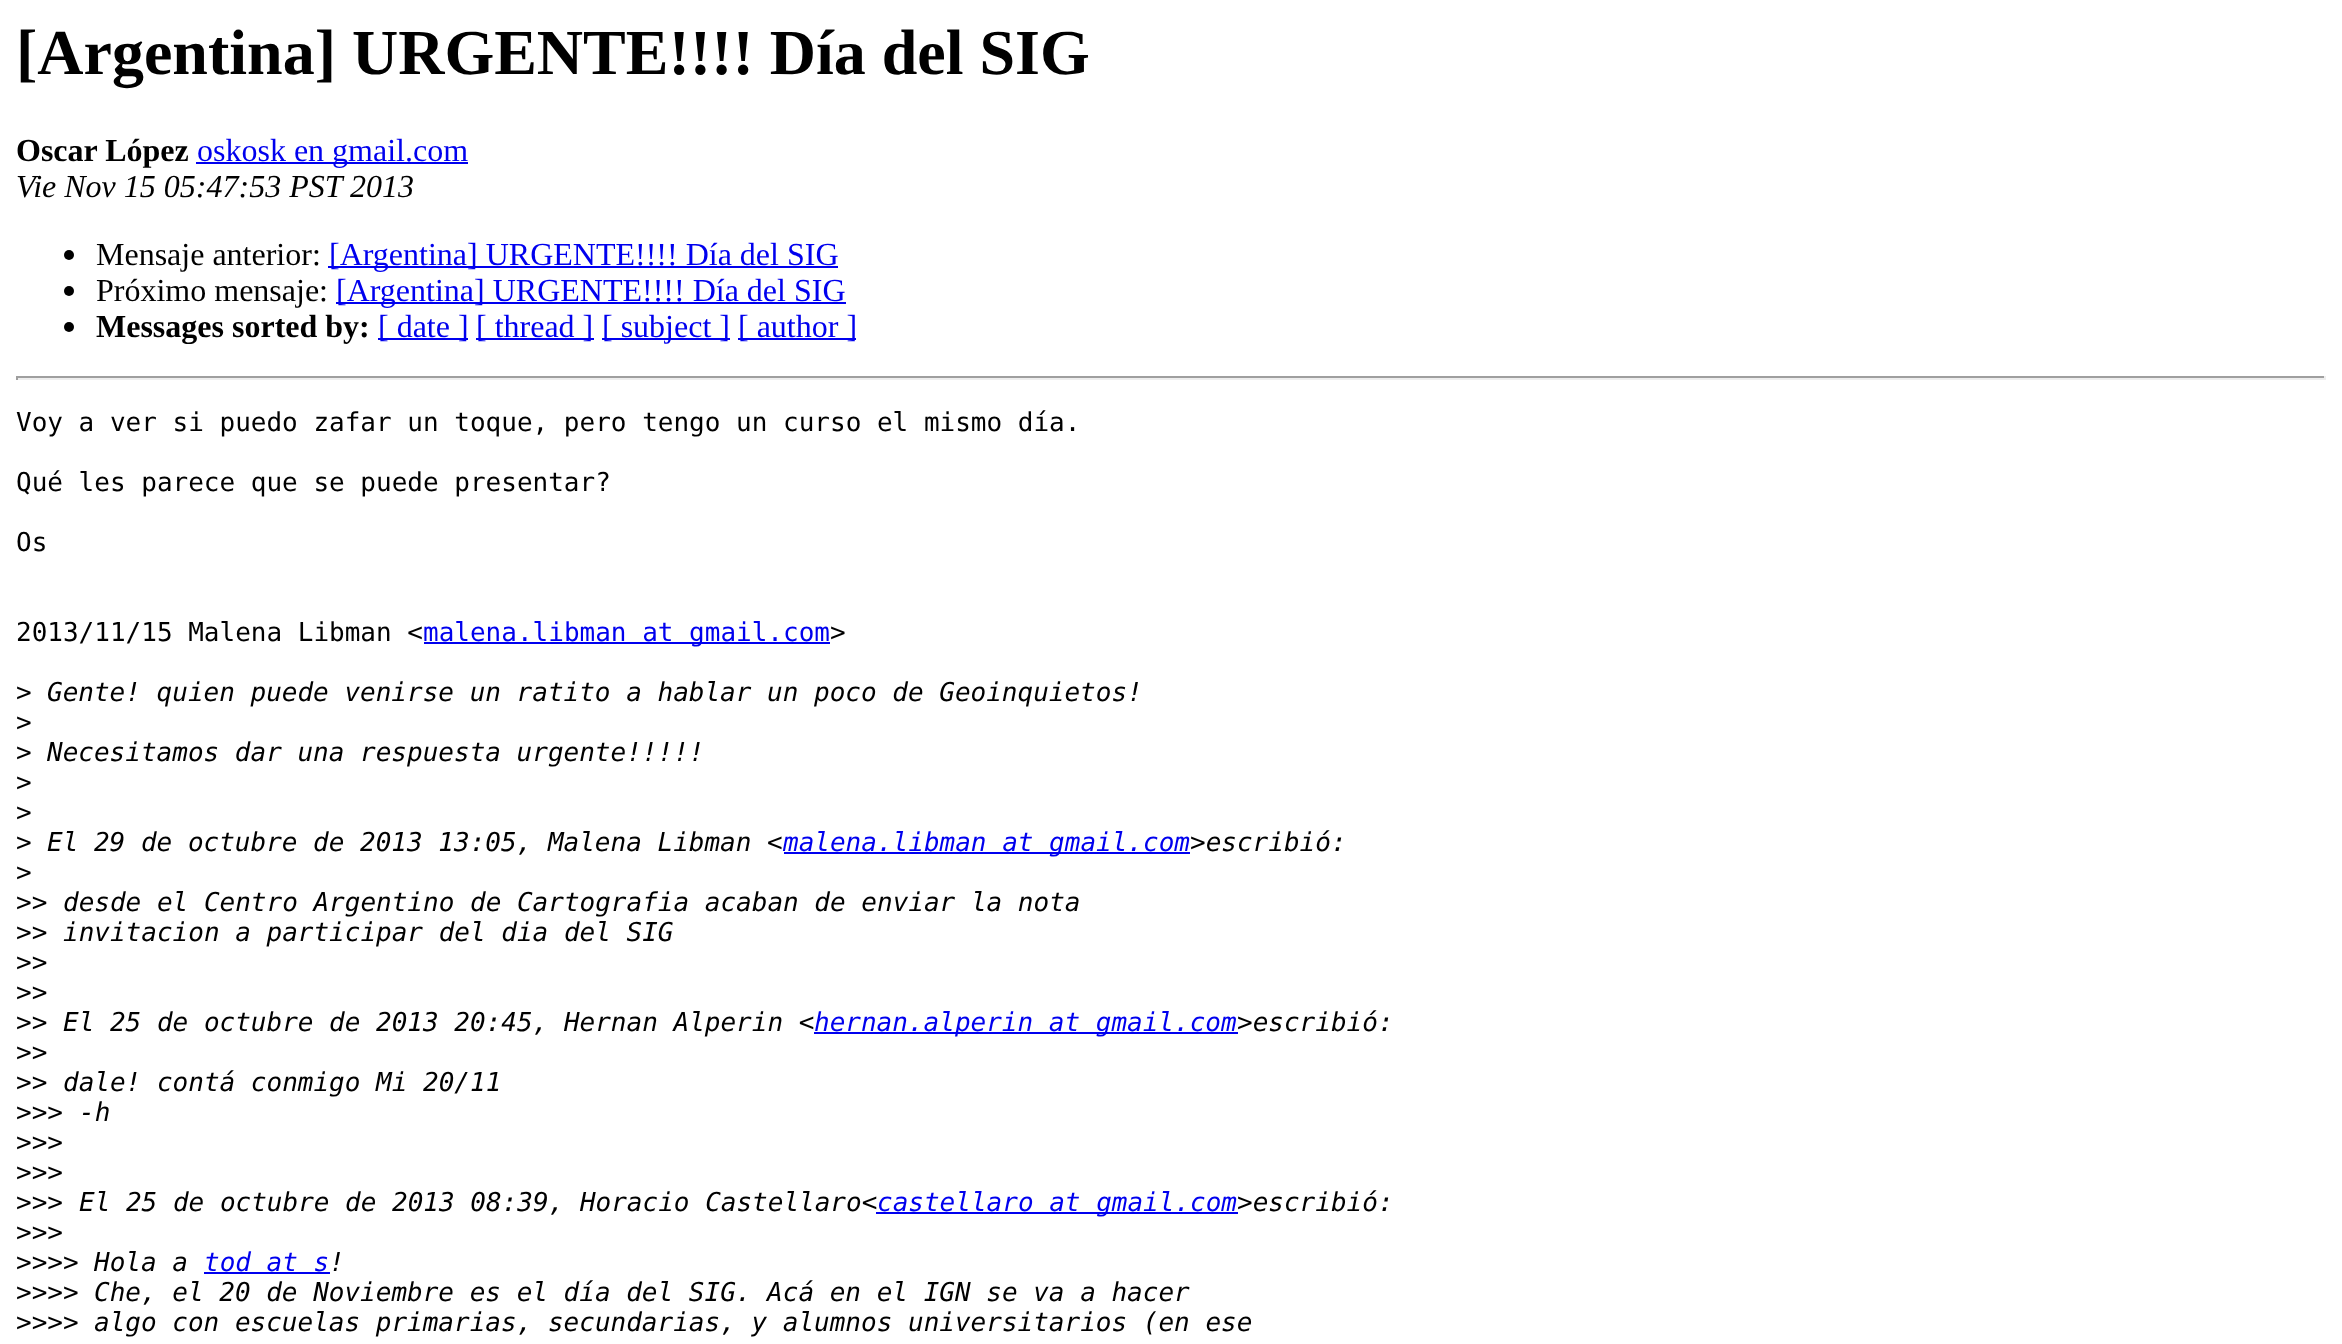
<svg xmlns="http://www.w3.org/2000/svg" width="2342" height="1344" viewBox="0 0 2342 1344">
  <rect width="100%" height="100%" fill="#fff"/>
  <path d="M196 162h272v2H196z" fill="#00e"/>
  <circle cx="69" cy="255" r="5" fill="#000"/>
  <path d="M328 266h510v2H328z" fill="#00e"/>
  <circle cx="69" cy="291" r="5" fill="#000"/>
  <path d="M336 302h510v2H336z" fill="#00e"/>
  <circle cx="69" cy="327" r="5" fill="#000"/>
  <path d="M378 338h90v2H378z" fill="#00e"/>
  <path d="M476 338h118v2H476z" fill="#00e"/>
  <path d="M602 338h128v2H602z" fill="#00e"/>
  <path d="M738 338h118v2H738z" fill="#00e"/>
  <path d="M16 376h2310v2H16z" fill="#9f9f9f"/>
  <path d="M2324 376h2v4H2324z" fill="#eee"/>
  <path d="M16 378h2310v2H16z" fill="#eee"/>
  <path d="M16 376h2v4H16z" fill="#9f9f9f"/>
  <path d="M424 642h406v2H424z" fill="#00e"/>
  <path d="M784 852h406v2H784z" fill="#00e"/>
  <path d="M814 1032h424v2H814z" fill="#00e"/>
  <path d="M876 1212h362v2H876z" fill="#00e"/>
  <path d="M204 1272h126v2H204z" fill="#00e"/>
  <text x="16" y="74" font-family="Liberation Serif" font-size="64" font-weight="bold" fill="#000">[Argentina] URGENTE!!!! Día del SIG</text>
  <text x="16" y="161" font-family="Liberation Serif" font-size="32" font-weight="bold" fill="#000">Oscar López</text>
  <text x="197" y="161" font-family="Liberation Serif" font-size="32" fill="#00e">oskosk en gmail.com</text>
  <text x="16" y="197" font-family="Liberation Serif" font-size="32" font-style="italic" fill="#000">Vie Nov 15 05:47:53 PST 2013</text>
  <text x="96" y="265" font-family="Liberation Serif" font-size="32" fill="#000">Mensaje anterior:</text>
  <text x="329" y="265" font-family="Liberation Serif" font-size="32" fill="#00e">[Argentina] URGENTE!!!! Día del SIG</text>
  <text x="96" y="301" font-family="Liberation Serif" font-size="32" fill="#000">Próximo mensaje:</text>
  <text x="336" y="301" font-family="Liberation Serif" font-size="32" fill="#00e">[Argentina] URGENTE!!!! Día del SIG</text>
  <text x="96" y="337" font-family="Liberation Serif" font-size="32" font-weight="bold" fill="#000">Messages sorted by:</text>
  <g font-family="Liberation Serif" font-size="32" fill="#00e">
    <text x="378" y="337">[ date ]</text>
    <text x="476" y="337">[ thread ]</text>
    <text x="602" y="337">[ subject ]</text>
    <text x="738" y="337">[ author ]</text>
  </g>
  <g font-family="DejaVu Sans Mono" font-size="26" fill="#000">
    <text x="16" y="431">Voy a ver si puedo zafar un toque, pero tengo un curso el mismo día.</text>
    <text x="16" y="491">Qué les parece que se puede presentar?</text>
    <text x="16" y="551">Os</text>
    <text x="16" y="641">2013/11/15 Malena Libman &lt;</text>
  </g>
  <text x="423" y="641" font-family="DejaVu Sans Mono" font-size="26" fill="#00e">malena.libman at gmail.com</text>
  <g font-family="DejaVu Sans Mono" font-size="26" fill="#000">
    <text x="830" y="641">&gt;</text>
    <text x="16" y="701">&gt;</text>
  </g>
  <text x="47" y="701" font-family="DejaVu Sans Mono" font-size="26" font-style="italic" fill="#000">Gente! quien puede venirse un ratito a hablar un poco de Geoinquietos!</text>
  <g font-family="DejaVu Sans Mono" font-size="26" fill="#000">
    <text x="16" y="731">&gt;</text>
    <text x="16" y="761">&gt;</text>
  </g>
  <text x="47" y="761" font-family="DejaVu Sans Mono" font-size="26" font-style="italic" fill="#000">Necesitamos dar una respuesta urgente!!!!!</text>
  <g font-family="DejaVu Sans Mono" font-size="26" fill="#000">
    <text x="16" y="791">&gt;</text>
    <text x="16" y="821">&gt;</text>
    <text x="16" y="851">&gt;</text>
  </g>
  <text x="47" y="851" font-family="DejaVu Sans Mono" font-size="26" font-style="italic" fill="#000">El 29 de octubre de 2013 13:05, Malena Libman &lt;</text>
  <text x="783" y="851" font-family="DejaVu Sans Mono" font-size="26" font-style="italic" fill="#00e">malena.libman at gmail.com</text>
  <text x="1190" y="851" font-family="DejaVu Sans Mono" font-size="26" font-style="italic" fill="#000">&gt;escribió:</text>
  <g font-family="DejaVu Sans Mono" font-size="26" fill="#000">
    <text x="16" y="881">&gt;</text>
    <text x="16" y="911">&gt;&gt;</text>
  </g>
  <text x="63" y="911" font-family="DejaVu Sans Mono" font-size="26" font-style="italic" fill="#000">desde el Centro Argentino de Cartografia acaban de enviar la nota</text>
  <text x="16" y="941" font-family="DejaVu Sans Mono" font-size="26" fill="#000">&gt;&gt;</text>
  <text x="63" y="941" font-family="DejaVu Sans Mono" font-size="26" font-style="italic" fill="#000">invitacion a participar del dia del SIG</text>
  <g font-family="DejaVu Sans Mono" font-size="26" fill="#000">
    <text x="16" y="971">&gt;&gt;</text>
    <text x="16" y="1001">&gt;&gt;</text>
    <text x="16" y="1031">&gt;&gt;</text>
  </g>
  <text x="63" y="1031" font-family="DejaVu Sans Mono" font-size="26" font-style="italic" fill="#000">El 25 de octubre de 2013 20:45, Hernan Alperin &lt;</text>
  <text x="814" y="1031" font-family="DejaVu Sans Mono" font-size="26" font-style="italic" fill="#00e">hernan.alperin at gmail.com</text>
  <text x="1237" y="1031" font-family="DejaVu Sans Mono" font-size="26" font-style="italic" fill="#000">&gt;escribió:</text>
  <g font-family="DejaVu Sans Mono" font-size="26" fill="#000">
    <text x="16" y="1061">&gt;&gt;</text>
    <text x="16" y="1091">&gt;&gt;</text>
  </g>
  <text x="63" y="1091" font-family="DejaVu Sans Mono" font-size="26" font-style="italic" fill="#000">dale! contá conmigo Mi 20/11</text>
  <text x="16" y="1121" font-family="DejaVu Sans Mono" font-size="26" fill="#000">&gt;&gt;&gt;</text>
  <text x="79" y="1121" font-family="DejaVu Sans Mono" font-size="26" font-style="italic" fill="#000">-h</text>
  <g font-family="DejaVu Sans Mono" font-size="26" fill="#000">
    <text x="16" y="1151">&gt;&gt;&gt;</text>
    <text x="16" y="1181">&gt;&gt;&gt;</text>
    <text x="16" y="1211">&gt;&gt;&gt;</text>
  </g>
  <text x="79" y="1211" font-family="DejaVu Sans Mono" font-size="26" font-style="italic" fill="#000">El 25 de octubre de 2013 08:39, Horacio Castellaro&lt;</text>
  <text x="877" y="1211" font-family="DejaVu Sans Mono" font-size="26" font-style="italic" fill="#00e">castellaro at gmail.com</text>
  <text x="1237" y="1211" font-family="DejaVu Sans Mono" font-size="26" font-style="italic" fill="#000">&gt;escribió:</text>
  <g font-family="DejaVu Sans Mono" font-size="26" fill="#000">
    <text x="16" y="1241">&gt;&gt;&gt;</text>
    <text x="16" y="1271">&gt;&gt;&gt;&gt;</text>
  </g>
  <text x="94" y="1271" font-family="DejaVu Sans Mono" font-size="26" font-style="italic" fill="#000">Hola a</text>
  <text x="204" y="1271" font-family="DejaVu Sans Mono" font-size="26" font-style="italic" fill="#00e">tod at s</text>
  <text x="329" y="1271" font-family="DejaVu Sans Mono" font-size="26" font-style="italic" fill="#000">!</text>
  <text x="16" y="1301" font-family="DejaVu Sans Mono" font-size="26" fill="#000">&gt;&gt;&gt;&gt;</text>
  <text x="94" y="1301" font-family="DejaVu Sans Mono" font-size="26" font-style="italic" fill="#000">Che, el 20 de Noviembre es el día del SIG. Acá en el IGN se va a hacer</text>
  <text x="16" y="1331" font-family="DejaVu Sans Mono" font-size="26" fill="#000">&gt;&gt;&gt;&gt;</text>
  <text x="94" y="1331" font-family="DejaVu Sans Mono" font-size="26" font-style="italic" fill="#000">algo con escuelas primarias, secundarias, y alumnos universitarios (en ese</text>
</svg>
